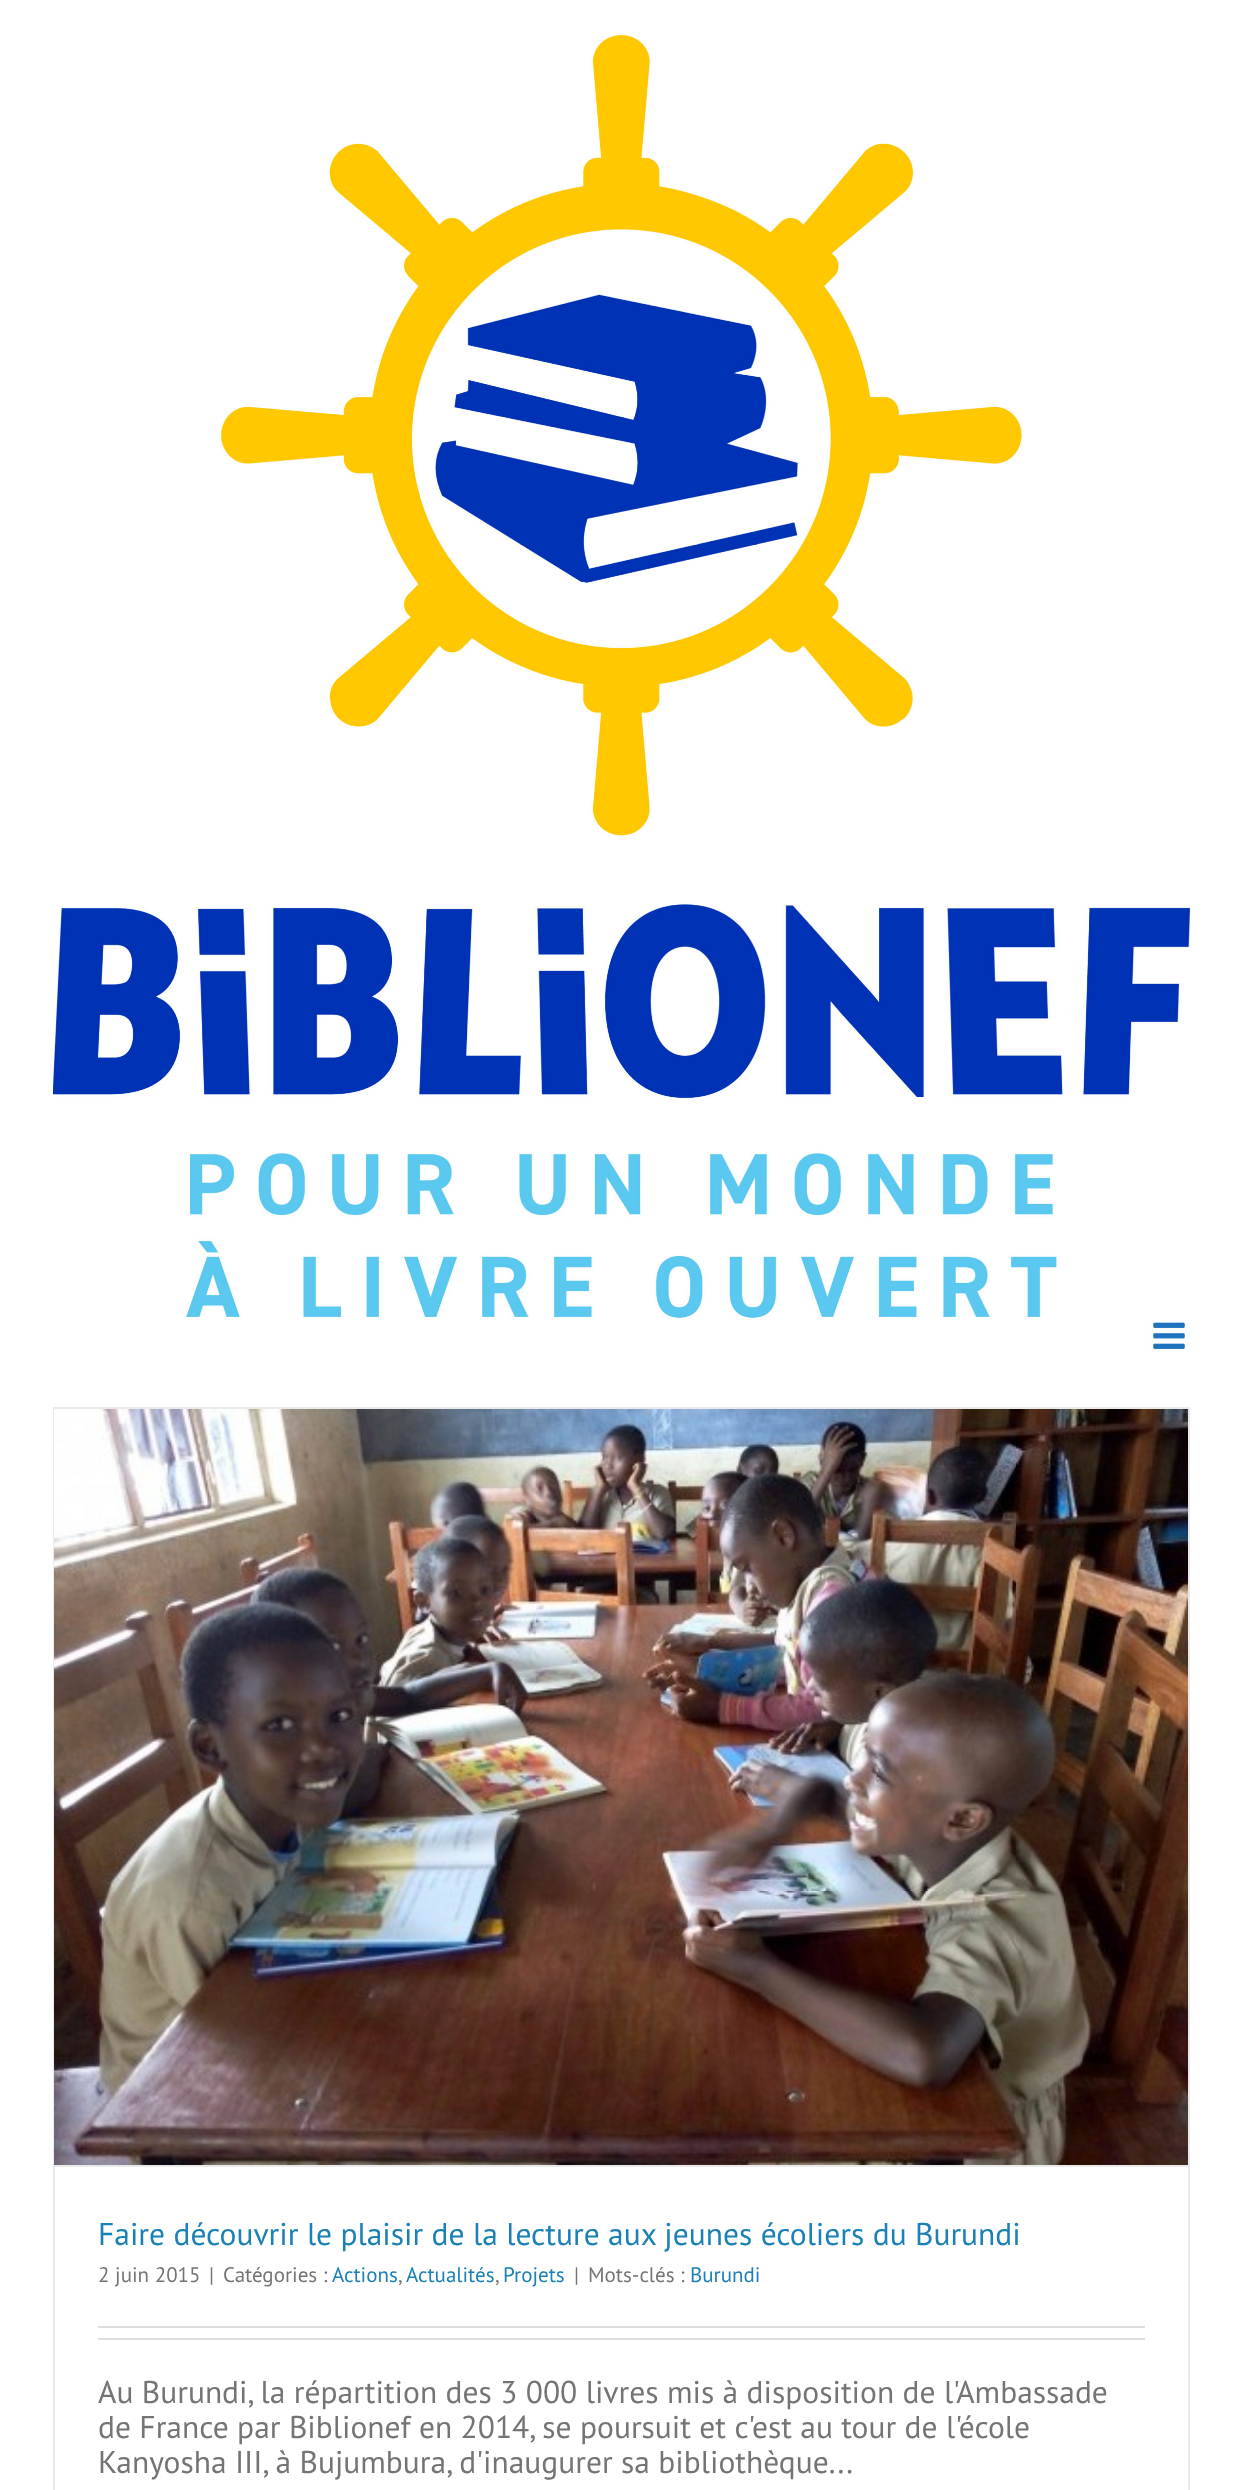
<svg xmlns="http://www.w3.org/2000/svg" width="1242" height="2490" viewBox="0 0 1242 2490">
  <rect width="100%" height="100%" fill="#fff"/>
  <image x="53" y="35" width="1137" height="1283" href="img/1.png"/>
  <image x="1153" y="1322" width="32" height="27" href="img/2.png"/>
  <path d="M53 1407h1137v2H53z" fill="#ebeaea"/>
  <path d="M1188 1407h2v1083H1188z" fill="#ebeaea"/>
  <path d="M53 1407h2v1083H53z" fill="#ebeaea"/>
  <path d="M54 2165h1134v2H54z" fill="#ebeaea"/>
  <image x="54" y="1409" width="1134" height="756" href="img/3.png"/>
  <path d="M98 2326h1047v2H98z" fill="#e0dede"/>
  <path d="M98 2338h1047v2H98z" fill="#e0dede"/>
  <text x="98" y="2245" font-family="PT Sans" font-size="31.5" fill="#1a80b6">Faire découvrir le plaisir de la lecture aux jeunes écoliers du Burundi</text>
  <g font-family="PT Sans" font-size="21" fill="#747474">
    <text x="98" y="2282">2 juin 2015</text>
    <text x="209" y="2282">|</text>
    <text x="223" y="2282">Catégories :</text>
  </g>
  <text x="332" y="2282" font-family="PT Sans" font-size="21" fill="#1a80b6">Actions</text>
  <text x="398" y="2282" font-family="PT Sans" font-size="21" fill="#747474">,</text>
  <text x="406" y="2282" font-family="PT Sans" font-size="21" fill="#1a80b6">Actualités</text>
  <text x="495" y="2282" font-family="PT Sans" font-size="21" fill="#747474">,</text>
  <text x="503" y="2282" font-family="PT Sans" font-size="21" fill="#1a80b6">Projets</text>
  <g font-family="PT Sans" font-size="21" fill="#747474">
    <text x="574" y="2282">|</text>
    <text x="588" y="2282">Mots-clés :</text>
  </g>
  <text x="690" y="2282" font-family="PT Sans" font-size="21" fill="#1a80b6">Burundi</text>
  <g font-family="PT Sans" font-size="31.5" fill="#747474">
    <text x="98" y="2403">Au Burundi, la répartition des 3 000 livres mis à disposition de l'Ambassade</text>
    <text x="98" y="2438">de France par Biblionef en 2014, se poursuit et c'est au tour de l'école</text>
    <text x="98" y="2473">Kanyosha III, à Bujumbura, d'inaugurer sa bibliothèque...</text>
  </g>
</svg>
